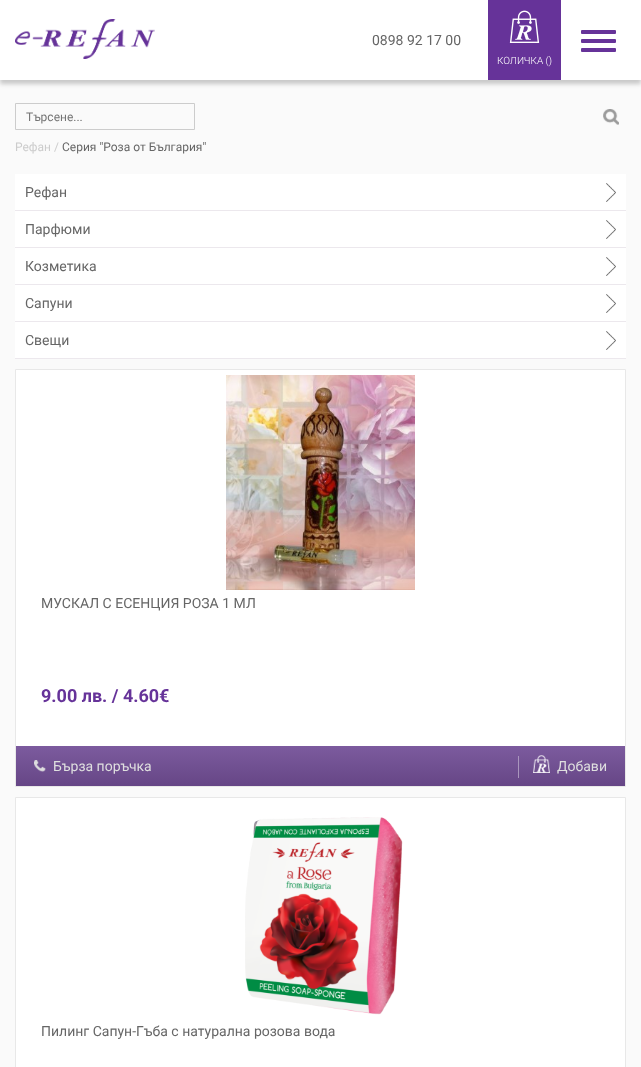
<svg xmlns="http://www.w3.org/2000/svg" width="641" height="1067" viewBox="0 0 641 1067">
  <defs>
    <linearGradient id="g1" gradientUnits="userSpaceOnUse" x1="321" y1="746" x2="321" y2="786"><stop offset="0" stop-color="#7c5b9e"/><stop offset="1" stop-color="#664686"/></linearGradient>
  </defs>
  <rect width="100%" height="100%" fill="#fafafa"/>
  <path d="M0 4h641v80H0z" fill="#01010133" filter="blur(2px)"/>
  <path d="M0 0h641v80H0z" fill="#fff"/>
  <image x="15" y="19" width="140" height="40" href="img/1.png"/>
  <rect x="581" y="30" width="35" height="4" rx="1" fill="#639"/>
  <rect x="581" y="39" width="35" height="4" rx="1" fill="#639"/>
  <rect x="581" y="48" width="35" height="4" rx="1" fill="#639"/>
  <path d="M488 0h73v80H488z" fill="#639"/>
  <image x="509" y="10" width="31" height="33" href="img/2.png"/>
  <path d="M15.5 103.5h179v26H15.5z" fill="none" stroke="#ccc"/>
  <image x="603" y="109" width="16" height="16" href="img/3.png"/>
  <path d="M15 174h611v36H15z" fill="#fff"/>
  <path d="M15 210h611v1H15z" fill="#ece8ed"/>
  <image x="606" y="183" width="10" height="19" href="img/4.png"/>
  <path d="M15 211h611v36H15z" fill="#fff"/>
  <path d="M15 247h611v1H15z" fill="#ece8ed"/>
  <image x="606" y="220" width="10" height="19" href="img/4.png"/>
  <path d="M15 248h611v36H15z" fill="#fff"/>
  <path d="M15 284h611v1H15z" fill="#ece8ed"/>
  <image x="606" y="257" width="10" height="19" href="img/4.png"/>
  <path d="M15 285h611v36H15z" fill="#fff"/>
  <path d="M15 321h611v1H15z" fill="#ece8ed"/>
  <image x="606" y="294" width="10" height="19" href="img/4.png"/>
  <path d="M15 322h611v36H15z" fill="#fff"/>
  <path d="M15 358h611v1H15z" fill="#ece8ed"/>
  <image x="606" y="331" width="10" height="19" href="img/4.png"/>
  <path d="M16 370h609v376H16z" fill="#fff"/>
  <path d="M15.5 369.5h610v417H15.5z" fill="none" stroke="#e8e8e8"/>
  <image x="226" y="375" width="189" height="215" href="img/5.png"/>
  <path d="M16 746h609v40H16z" fill="url(#g1)"/>
  <image x="34" y="760" width="12" height="12" href="img/6.png"/>
  <path d="M518 756h1v22H518z" fill="#a996bd"/>
  <image x="533" y="755" width="17" height="18" href="img/7.png"/>
  <path d="M15.5 797.5h610v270H15.5z" fill="#fff" stroke="#e8e8e8"/>
  <image x="245" y="817" width="158" height="198" href="img/8.png"/>
  <text x="372" y="45" font-family="Roboto" font-size="14" fill="#666">0898 92 17 00</text>
  <text x="497" y="64" font-family="Roboto" font-size="10" font-weight="300" fill="#fff">КОЛИЧКА ()</text>
  <text x="26" y="121" font-family="Roboto" font-size="12" fill="#757575">Търсене...</text>
  <text x="15" y="151" font-family="Roboto" font-size="12" fill="#ccc">Рефан /</text>
  <text x="62" y="151" font-family="Roboto" font-size="12" fill="#666">Серия "Роза от България"</text>
  <g font-family="Roboto" font-size="14" fill="#666">
    <text x="25" y="197">Рефан</text>
    <text x="25" y="234">Парфюми</text>
    <text x="25" y="271">Козметика</text>
    <text x="25" y="308">Сапуни</text>
    <text x="25" y="345">Свещи</text>
    <text x="41" y="608">МУСКАЛ С ЕСЕНЦИЯ РОЗА 1 МЛ</text>
  </g>
  <text x="41" y="702" font-family="Roboto" font-size="18" font-weight="bold" fill="#639">9.00 лв. / 4.60€</text>
  <g font-family="Roboto" font-size="14" fill="#dfdfdf">
    <text x="53" y="771">Бърза поръчка</text>
    <text x="557" y="771">Добави</text>
  </g>
  <text x="41" y="1036" font-family="Roboto" font-size="14" fill="#666">Пилинг Сапун-Гъба с натурална розова вода</text>
</svg>
